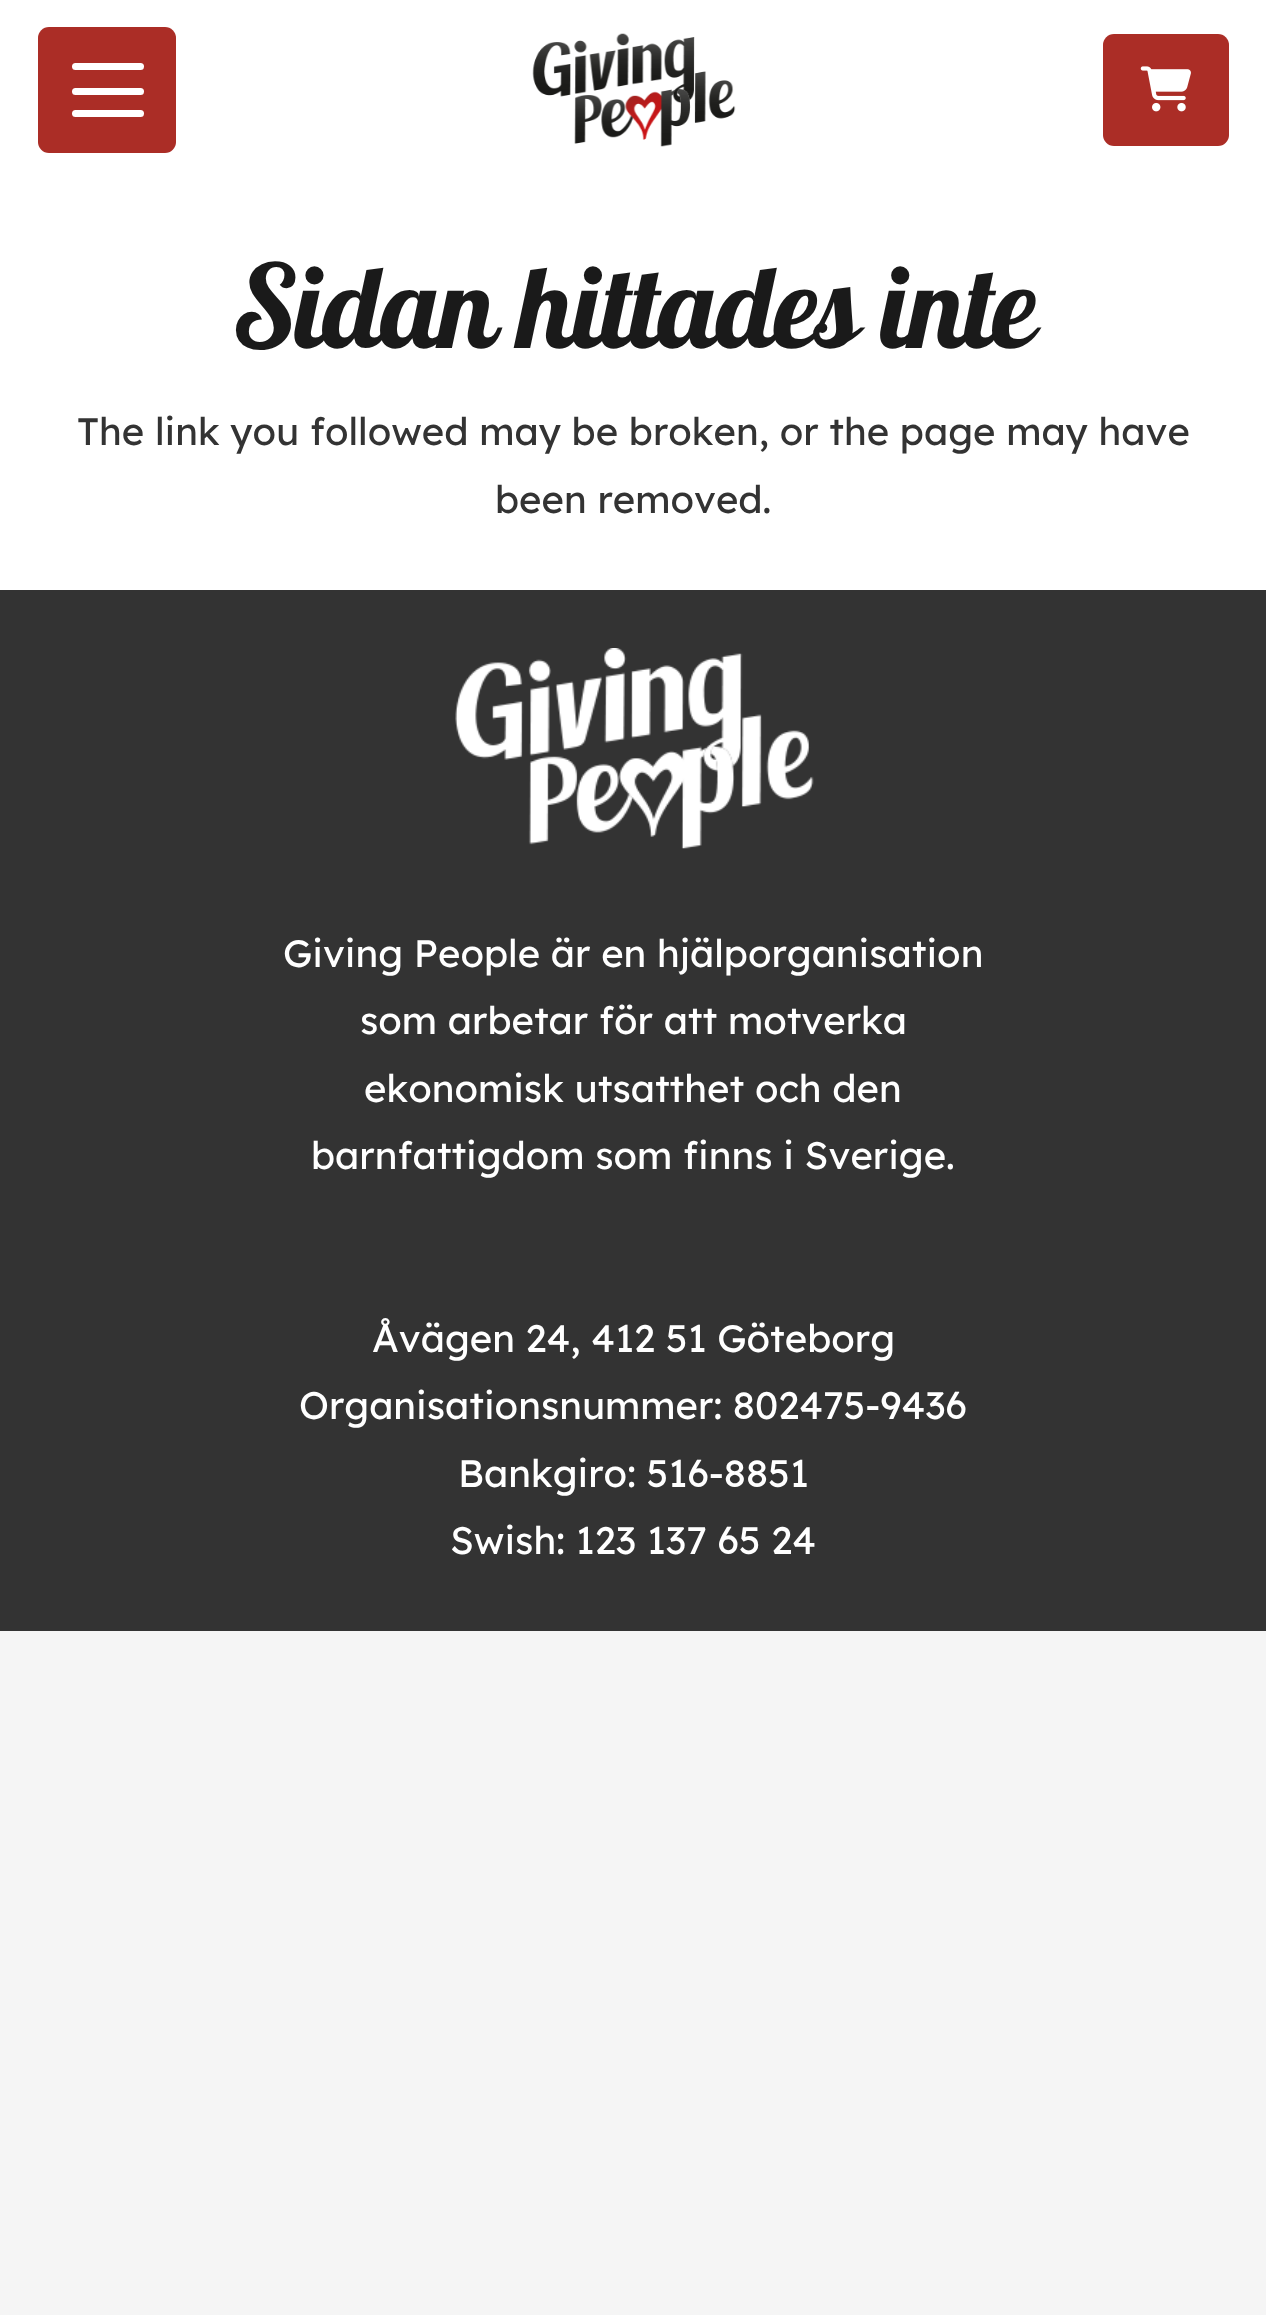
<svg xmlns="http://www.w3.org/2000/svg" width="1266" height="2315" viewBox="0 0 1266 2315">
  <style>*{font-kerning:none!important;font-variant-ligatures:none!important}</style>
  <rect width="100%" height="100%" fill="#f5f5f5"/>
  <path d="M0 0h1266v590H0z" fill="#fff"/>
  <rect x="38" y="27" width="138" height="126" rx="11" fill="#ab2d26"/>
  <rect x="72" y="88" width="72" height="7" rx="3.5" fill="#fff"/>
  <rect x="72" y="63" width="72" height="7" rx="3.5" fill="#fff"/>
  <rect x="72" y="110" width="72" height="7" rx="3.5" fill="#fff"/>
  <image x="532" y="33" width="204" height="114" href="img/1.png"/>
  <rect x="1103" y="34" width="126" height="112" rx="11" fill="#ab2d26"/>
  <image x="1140" y="66" width="51" height="46" href="img/2.png"/>
  <path d="M0 590h1266v1041H0z" fill="#333"/>
  <image x="455" y="648" width="359" height="201" href="img/3.png"/>
  <text x="232" y="348" font-family="Lobster" font-size="114.75" letter-spacing="-2.25" fill="#1a1a1a">Sidan hittades inte</text>
  <g font-family="Lexend" font-size="38.25" fill="#333">
    <text x="77" y="445">The link you followed may be broken, or the page may have</text>
    <text x="495" y="513">been removed.</text>
  </g>
  <g font-family="Lexend" font-size="38.25" fill="#fff">
    <text x="283" y="967">Giving People är en hjälporganisation</text>
    <text x="360" y="1034">som arbetar för att motverka</text>
    <text x="364" y="1102">ekonomisk utsatthet och den</text>
    <text x="311" y="1169">barnfattigdom som finns i Sverige.</text>
    <text x="372" y="1352">Åvägen 24, 412 51 Göteborg</text>
    <text x="299" y="1419">Organisationsnummer: 802475-9436</text>
    <text x="458" y="1487">Bankgiro: 516-8851</text>
    <text x="450" y="1554">Swish: 123 137 65 24</text>
  </g>
</svg>
